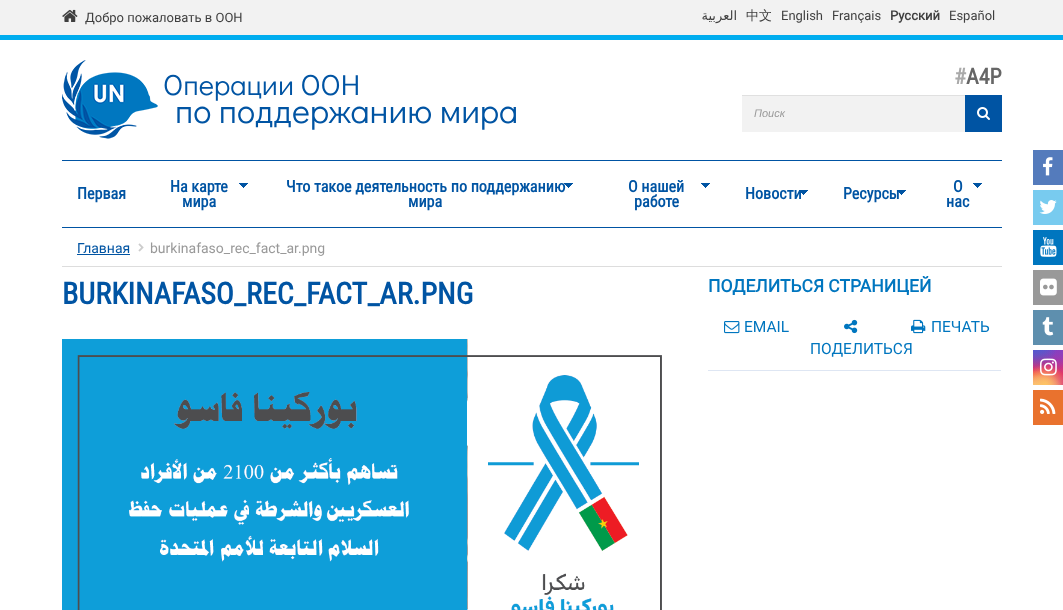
<svg xmlns="http://www.w3.org/2000/svg" width="1063" height="610" viewBox="0 0 1063 610">
  <defs>
    <linearGradient id="g1" gradientUnits="userSpaceOnUse" x1="1051" y1="350" x2="1051" y2="385"><stop offset="0" stop-color="#6559ca"/><stop offset="0.3" stop-color="#bc318f"/><stop offset="0.5" stop-color="#e42e66"/><stop offset="0.7" stop-color="#fa5332"/><stop offset="1" stop-color="#ffdc80"/></linearGradient>
    <radialGradient id="g2" gradientUnits="userSpaceOnUse" cx="1068" cy="385" r="49"><stop offset="0" stop-color="#d9317a"/><stop offset="1" stop-color="#d9317a" stop-opacity="0"/></radialGradient>
    <radialGradient id="g3" gradientUnits="userSpaceOnUse" cx="0" cy="0" r="1" gradientTransform="matrix(30 0 0 59 1054 343)"><stop offset="0" stop-color="#893dc2"/><stop offset="0.5" stop-color="#893dc2" stop-opacity="0"/></radialGradient>
    <radialGradient id="g4" gradientUnits="userSpaceOnUse" cx="1068" cy="350" r="49"><stop offset="0" stop-color="#893dc2"/><stop offset="0.5" stop-color="#893dc2" stop-opacity="0"/></radialGradient>
    <radialGradient id="g5" gradientUnits="userSpaceOnUse" cx="0" cy="0" r="1" gradientTransform="matrix(40 0 0 74 1040 333)"><stop offset="0" stop-color="#5258cf"/><stop offset="0.5" stop-color="#5258cf" stop-opacity="0"/></radialGradient>
    <radialGradient id="g6" gradientUnits="userSpaceOnUse" cx="0" cy="0" r="1" gradientTransform="matrix(49 0 0 62 1033 341)"><stop offset="0" stop-color="#5258cf"/><stop offset="0.5" stop-color="#5258cf" stop-opacity="0"/></radialGradient>
    <radialGradient id="g7" gradientUnits="userSpaceOnUse" cx="1037" cy="399" r="58"><stop offset="0" stop-color="#feda7e"/><stop offset="0.5" stop-color="#feda7e" stop-opacity="0"/></radialGradient>
    <radialGradient id="g8" gradientUnits="userSpaceOnUse" cx="1045" cy="385" r="42"><stop offset="0" stop-color="#fec564"/><stop offset="0.5" stop-color="#fec564" stop-opacity="0"/></radialGradient>
  </defs>
  <rect width="100%" height="100%" fill="#fff"/>
  <path d="M0 0h1063v35H0z" fill="#f2f2f2"/>
  <path d="M0 35h1063v5H0z" fill="#00adef"/>
  <image x="62" y="9" width="16" height="13" href="img/1.png"/>
  <image x="62" y="60" width="96" height="79" href="img/2.png"/>
  <path d="M742 96h223v36H742z" fill="#f2f2f2"/>
  <path d="M742 95h223v1H742z" fill="#e0e0e0"/>
  <path d="M965 95h37v37H965z" fill="#0054a3"/>
  <image x="977" y="107" width="13" height="13" href="img/3.png"/>
  <path d="M62 160h940v1H62z" fill="#0054a3"/>
  <path d="M62 227h940v1H62z" fill="#0054a3"/>
  <image x="239" y="183" width="9" height="5" href="img/4.png"/>
  <image x="701" y="183" width="9" height="5" href="img/4.png"/>
  <image x="973" y="183" width="9" height="5" href="img/4.png"/>
  <path d="M1033 150h30v35H1033z" fill="#547bbc"/>
  <image x="1043" y="157" width="10" height="19" href="img/8.png"/>
  <path d="M1033 190h30v35H1033z" fill="#78cbef"/>
  <image x="1039" y="200" width="18" height="14" href="img/9.png"/>
  <path d="M1033 230h30v35H1033z" fill="#0076bf"/>
  <image x="1040" y="237" width="17" height="20" href="img/10.png"/>
  <path d="M1033 270h30v35H1033z" fill="#999"/>
  <image x="1040" y="278" width="17" height="18" href="img/11.png"/>
  <path d="M1033 310h30v35H1033z" fill="#5e8fae"/>
  <image x="1042" y="317" width="12" height="19" href="img/12.png"/>
  <path d="M1033 350h30v35H1033z" fill="url(#g1)"/>
  <path d="M1033 350h30v35H1033z" fill="url(#g2)"/>
  <path d="M1041 350h22v22H1041z" fill="url(#g3)"/>
  <path d="M1047 350h16v23H1047z" fill="url(#g4)"/>
  <path d="M1033 350h24v19H1033z" fill="url(#g5)"/>
  <path d="M1033 350h22v21H1033z" fill="url(#g6)"/>
  <path d="M1033 371h28v14H1033z" fill="url(#g7)"/>
  <path d="M1033 364h30v21H1033z" fill="url(#g8)"/>
  <image x="1040" y="358" width="17" height="18" href="img/13.png"/>
  <path d="M1033 390h30v35H1033z" fill="#e9722e"/>
  <image x="1040" y="398" width="16" height="16" href="img/14.png"/>
  <path d="M62 266h940v1H62z" fill="#ddd"/>
  <path d="M77 254h53v1H77z" fill="#0054a3"/>
  <image x="138" y="243" width="6" height="9" href="img/15.png"/>
  <image x="62" y="339" width="600" height="271" href="img/16.png"/>
  <path d="M708 370h293v1H708z" fill="#dee6f3"/>
  <image x="724" y="321" width="16" height="13" href="img/17.png"/>
  <image x="911" y="319" width="15" height="15" href="img/18.png"/>
  <image x="844" y="319" width="14" height="15" href="img/19.png"/>
  <text x="85" y="22" font-family="Roboto" font-size="13" fill="#3f3f3f">Добро пожаловать в ООН</text>
  <text x="737" y="20" font-family="DejaVu Sans" font-size="13" direction="rtl" fill="#3f3f3f">العربية</text>
  <text x="746" y="20" font-family="WenQuanYi Zen Hei" font-size="13" font-weight="500" fill="#3f3f3f">中文</text>
  <g font-family="Roboto" font-size="13" fill="#3f3f3f">
    <text x="781" y="20">English</text>
    <text x="832" y="20">Français</text>
  </g>
  <text x="890" y="20" font-family="Roboto" font-size="13" font-weight="bold" fill="#3f3f3f">Русский</text>
  <text x="949" y="20" font-family="Roboto" font-size="13" fill="#3f3f3f">Español</text>
  <text x="163" y="95" font-family="Didact Gothic" font-size="29" fill="#0054a3">Операции OOH</text>
  <text x="175" y="123" font-family="Didact Gothic" font-size="34" fill="#0054a3">по поддержанию мира</text>
  <text x="954" y="84" font-family="Roboto Condensed" font-size="22" font-weight="bold" fill="#aaa">#</text>
  <text x="966" y="84" font-family="Roboto Condensed" font-size="22" font-weight="bold" fill="#666">A4P</text>
  <text x="754" y="117" font-family="Liberation Sans" font-size="11" font-style="italic" fill="#999">Поиск</text>
  <g font-family="Roboto Condensed" font-size="16.1" font-weight="bold" fill="#0054a3">
    <text x="77" y="199">Первая</text>
    <text x="170" y="192">На карте</text>
    <text x="182" y="207">мира</text>
    <text x="286" y="192">Что такое деятельность по поддержанию</text>
  </g>
  <image x="564" y="183" width="9" height="5" href="img/5.png"/>
  <g font-family="Roboto Condensed" font-size="16.1" font-weight="bold" fill="#0054a3">
    <text x="408" y="207">мира</text>
    <text x="628" y="192">О нашей</text>
    <text x="634" y="207">работе</text>
    <text x="745" y="199">Новости</text>
  </g>
  <image x="799" y="190" width="9" height="5" href="img/6.png"/>
  <text x="843" y="199" font-family="Roboto Condensed" font-size="16.1" font-weight="bold" fill="#0054a3">Ресурсы</text>
  <image x="897" y="190" width="9" height="5" href="img/7.png"/>
  <g font-family="Roboto Condensed" font-size="16.1" font-weight="bold" fill="#0054a3">
    <text x="953" y="192">О</text>
    <text x="946" y="207">нас</text>
  </g>
  <text x="77" y="253" font-family="Roboto" font-size="14" fill="#0054a3">Главная</text>
  <text x="150" y="253" font-family="Roboto" font-size="14" fill="#999">burkinafaso_rec_fact_ar.png</text>
  <text x="62" y="304" font-family="Roboto Condensed" font-size="30" font-weight="bold" fill="#0054a3">BURKINAFASO_REC_FACT_AR.PNG</text>
  <text x="708" y="292" font-family="Roboto" font-size="17.5" font-weight="bold" fill="#0076bf">ПОДЕЛИТЬСЯ СТРАНИЦЕЙ</text>
  <g font-family="Roboto" font-size="15.5" fill="#0076bf">
    <text x="744" y="332">EMAIL</text>
    <text x="931" y="332">ПЕЧАТЬ</text>
    <text x="810" y="354">ПОДЕЛИТЬСЯ</text>
  </g>
</svg>
